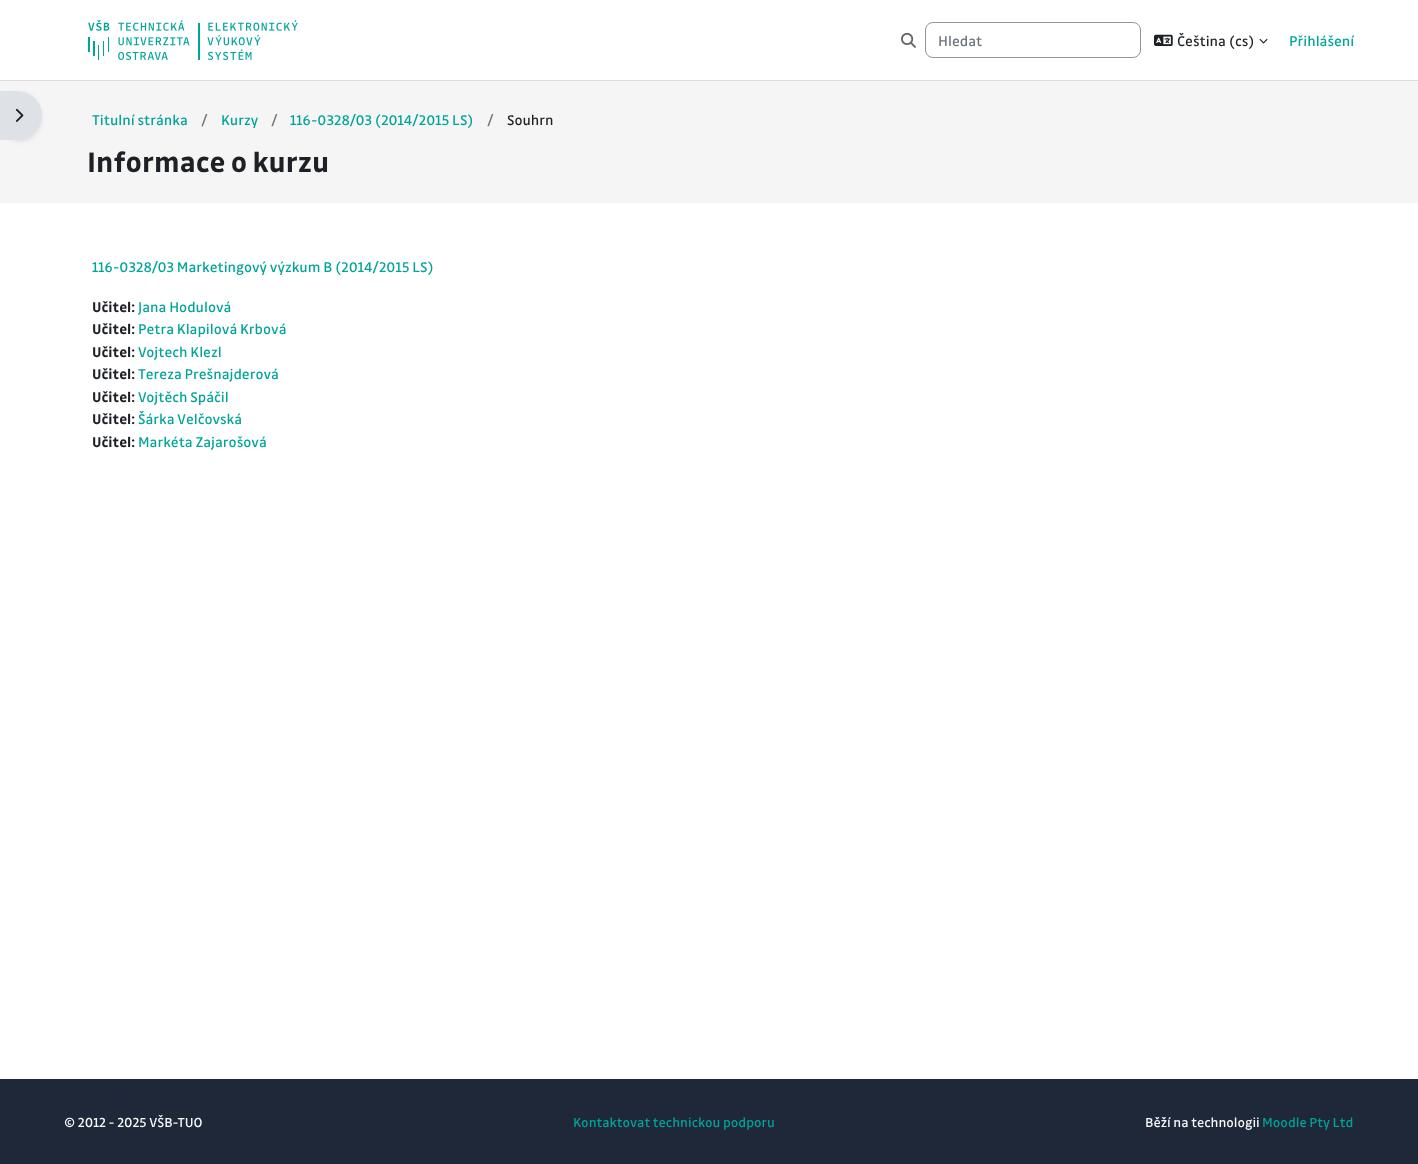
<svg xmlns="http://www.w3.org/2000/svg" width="1418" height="1164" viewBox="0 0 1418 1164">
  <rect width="100%" height="100%" fill="#fff"/>
  <path d="M0 80h1418v1H0z" fill="#ddd"/>
  <image x="88" y="20" width="102" height="40" href="img/1.png"/>
  <image x="198" y="20" width="100" height="40" href="img/2.png"/>
  <image x="901" y="32" width="15" height="16" href="img/3.png"/>
  <rect x="925.5" y="22.5" width="215" height="35" rx="7.5" fill="none" stroke="#8f959e"/>
  <image x="1154" y="34" width="19" height="12" href="img/4.png"/>
  <image x="1259" y="39" width="9" height="5" href="img/5.png"/>
  <path d="M0 81h1418v122H0z" fill="#f5f5f5"/>
  <rect y="93" width="42" height="49" rx="25" fill="#00000012" filter="blur(2px)"/>
  <path d="M0 91H17.5C31 91 42 102 42 115.5C42 129 31 140 17.5 140H0Z" fill="#dee2e6"/>
  <image x="15" y="108" width="9" height="14" href="img/6.png"/>
  <path d="M0 1079h1418v85H0z" fill="#1e2838"/>
  <text x="938" y="46" font-family="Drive" font-size="15" fill="#6a737b">Hledat</text>
  <text x="1177" y="46" font-family="Drive" font-size="15" fill="#1d2125">Čeština (cs)</text>
  <g font-family="Drive" font-size="15" fill="#00a499">
    <text x="1289" y="46">Přihlášení</text>
    <text x="92" y="125">Titulní stránka</text>
  </g>
  <text x="201" y="125" font-family="Drive" font-size="15" fill="#6a737b">/</text>
  <text x="221" y="125" font-family="Drive" font-size="15" fill="#00a499">Kurzy</text>
  <text x="271" y="125" font-family="Drive" font-size="15" fill="#6a737b">/</text>
  <text x="290" y="125" font-family="Drive" font-size="15" fill="#00a499">116-0328/03 (2014/2015 LS)</text>
  <text x="487" y="125" font-family="Drive" font-size="15" fill="#6a737b">/</text>
  <text x="507" y="125" font-family="Drive" font-size="15" fill="#1d2125">Souhrn</text>
  <text x="87" y="172" font-family="Drive" font-size="30" font-weight="bold" fill="#1d2125">Informace o kurzu</text>
  <text x="92" y="272" font-family="Drive" font-size="15" fill="#00a499">116-0328/03 Marketingový výzkum B (2014/2015 LS)</text>
  <text x="92" y="312" font-family="Drive" font-size="15" font-weight="bold" fill="#1d2125">Učitel:</text>
  <text x="138" y="312" font-family="Drive" font-size="15" fill="#00a499">Jana Hodulová</text>
  <text x="92" y="334" font-family="Drive" font-size="15" font-weight="bold" fill="#1d2125">Učitel:</text>
  <text x="138" y="334" font-family="Drive" font-size="15" fill="#00a499">Petra Klapilová Krbová</text>
  <text x="92" y="357" font-family="Drive" font-size="15" font-weight="bold" fill="#1d2125">Učitel:</text>
  <text x="138" y="357" font-family="Drive" font-size="15" fill="#00a499">Vojtech Klezl</text>
  <text x="92" y="379" font-family="Drive" font-size="15" font-weight="bold" fill="#1d2125">Učitel:</text>
  <text x="138" y="379" font-family="Drive" font-size="15" fill="#00a499">Tereza Prešnajderová</text>
  <text x="92" y="402" font-family="Drive" font-size="15" font-weight="bold" fill="#1d2125">Učitel:</text>
  <text x="138" y="402" font-family="Drive" font-size="15" fill="#00a499">Vojtěch Spáčil</text>
  <text x="92" y="424" font-family="Drive" font-size="15" font-weight="bold" fill="#1d2125">Učitel:</text>
  <text x="138" y="424" font-family="Drive" font-size="15" fill="#00a499">Šárka Velčovská</text>
  <text x="92" y="447" font-family="Drive" font-size="15" font-weight="bold" fill="#1d2125">Učitel:</text>
  <text x="138" y="447" font-family="Drive" font-size="15" fill="#00a499">Markéta Zajarošová</text>
  <text x="64" y="1127" font-family="Drive" font-size="14" fill="#f8f9fa">© 2012 - 2025 VŠB-TUO</text>
  <text x="573" y="1127" font-family="Drive" font-size="14" fill="#00a499">Kontaktovat technickou podporu</text>
  <text x="1145" y="1127" font-family="Drive" font-size="14" fill="#f8f9fa">Běží na technologii</text>
  <text x="1262" y="1127" font-family="Drive" font-size="14" fill="#00a499">Moodle Pty Ltd</text>
</svg>
